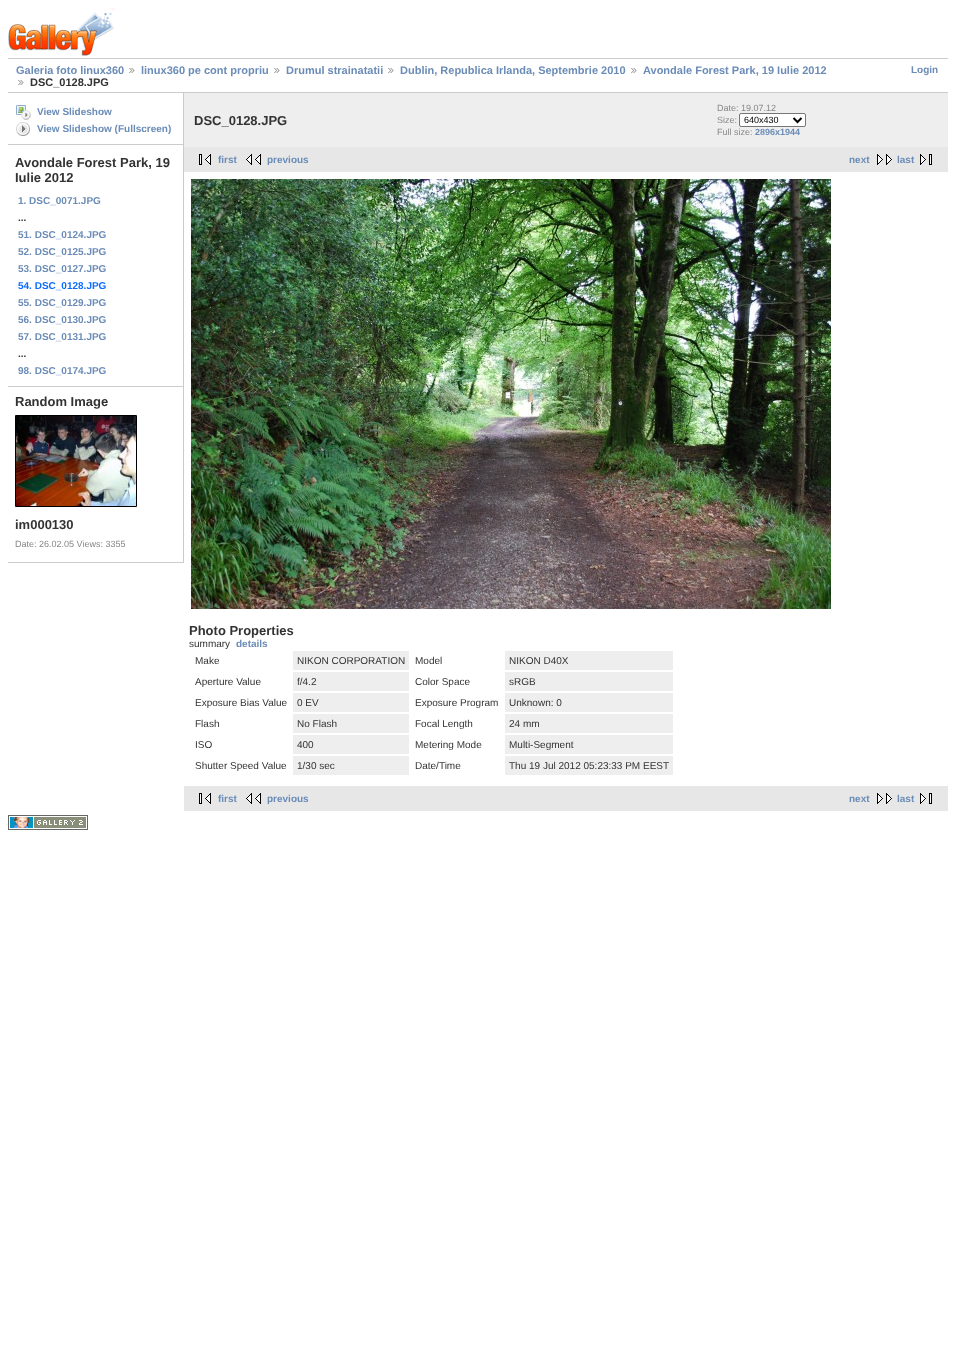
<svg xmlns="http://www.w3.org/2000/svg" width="956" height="1368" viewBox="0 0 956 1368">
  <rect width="100%" height="100%" fill="#fff"/>
  <image x="8" y="8" width="107" height="48" href="img/1.png"/>
  <path d="M8 58h940v1H8z" fill="#ccc"/>
  <path d="M8 92h940v1H8z" fill="#ccc"/>
  <image x="129" y="68" width="6" height="5" href="img/2.png"/>
  <image x="274" y="68" width="6" height="5" href="img/2.png"/>
  <image x="388" y="68" width="6" height="5" href="img/2.png"/>
  <image x="631" y="68" width="6" height="5" href="img/2.png"/>
  <image x="18" y="80" width="6" height="5" href="img/2.png"/>
  <path d="M183 93h1v470H183z" fill="#ccc"/>
  <path d="M8 144h175v1H8z" fill="#ccc"/>
  <image x="16" y="105" width="15" height="15" href="img/3.png"/>
  <image x="16" y="122" width="14" height="14" href="img/4.png"/>
  <path d="M8 386h175v1H8z" fill="#ccc"/>
  <path d="M8 562h175v1H8z" fill="#ccc"/>
  <path d="M15.5 415.5h121v91H15.5z" fill="none" stroke="#000"/>
  <image x="16" y="416" width="120" height="90" href="img/5.png"/>
  <path d="M184 93h764v54H184z" fill="#eee"/>
  <rect x="739.5" y="113.5" width="66" height="13" rx="1.5" fill="#fff" stroke="#767676"/>
  <path d="M793.5 118L797.5 122L801.5 118" fill="none" stroke="#000" stroke-width="2"/>
  <path d="M184 147h764v25H184z" fill="#e7e7e7"/>
  <image x="199" y="154" width="12" height="11" href="img/6.png"/>
  <image x="246" y="154" width="15" height="11" href="img/7.png"/>
  <image x="877" y="154" width="15" height="11" href="img/8.png"/>
  <image x="920" y="154" width="12" height="11" href="img/9.png"/>
  <image x="191" y="179" width="640" height="430" href="img/10.png"/>
  <path d="M293 651h116v19H293z" fill="#eee"/>
  <path d="M505 651h168v19H505z" fill="#eee"/>
  <path d="M293 672h116v19H293z" fill="#eee"/>
  <path d="M505 672h168v19H505z" fill="#eee"/>
  <path d="M293 693h116v19H293z" fill="#eee"/>
  <path d="M505 693h168v19H505z" fill="#eee"/>
  <path d="M293 714h116v19H293z" fill="#eee"/>
  <path d="M505 714h168v19H505z" fill="#eee"/>
  <path d="M293 735h116v19H293z" fill="#eee"/>
  <path d="M505 735h168v19H505z" fill="#eee"/>
  <path d="M293 756h116v19H293z" fill="#eee"/>
  <path d="M505 756h168v19H505z" fill="#eee"/>
  <path d="M184 786h764v25H184z" fill="#e7e7e7"/>
  <image x="199" y="793" width="12" height="11" href="img/6.png"/>
  <image x="246" y="793" width="15" height="11" href="img/7.png"/>
  <image x="877" y="793" width="15" height="11" href="img/8.png"/>
  <image x="920" y="793" width="12" height="11" href="img/9.png"/>
  <image x="8" y="815" width="80" height="15" href="img/11.png"/>
  <g font-family="Liberation Sans" font-size="11" font-weight="bold" fill="#6b8cb7">
    <text x="16" y="74">Galeria foto linux360</text>
    <text x="141" y="74">linux360 pe cont propriu</text>
    <text x="286" y="74">Drumul strainatatii</text>
    <text x="400" y="74">Dublin, Republica Irlanda, Septembrie 2010</text>
    <text x="643" y="74">Avondale Forest Park, 19 Iulie 2012</text>
  </g>
  <text x="30" y="86" font-family="Liberation Sans" font-size="11" font-weight="bold" fill="#333">DSC_0128.JPG</text>
  <g font-family="Liberation Sans" font-size="10" font-weight="bold" fill="#6b8cb7">
    <text x="911" y="73">Login</text>
    <text x="37" y="115">View Slideshow</text>
    <text x="37" y="132">View Slideshow (Fullscreen)</text>
  </g>
  <g font-family="Liberation Sans" font-size="13" font-weight="bold" fill="#333">
    <text x="15" y="167">Avondale Forest Park, 19</text>
    <text x="15" y="182">Iulie 2012</text>
  </g>
  <text x="18" y="204" font-family="Liberation Sans" font-size="10" font-weight="bold" fill="#6b8cb7">1. DSC_0071.JPG</text>
  <text x="18" y="221" font-family="Liberation Sans" font-size="10" font-weight="bold" fill="#333">...</text>
  <g font-family="Liberation Sans" font-size="10" font-weight="bold" fill="#6b8cb7">
    <text x="18" y="238">51. DSC_0124.JPG</text>
    <text x="18" y="255">52. DSC_0125.JPG</text>
    <text x="18" y="272">53. DSC_0127.JPG</text>
  </g>
  <text x="18" y="289" font-family="Liberation Sans" font-size="10" font-weight="bold" fill="#0b6cff">54. DSC_0128.JPG</text>
  <g font-family="Liberation Sans" font-size="10" font-weight="bold" fill="#6b8cb7">
    <text x="18" y="306">55. DSC_0129.JPG</text>
    <text x="18" y="323">56. DSC_0130.JPG</text>
    <text x="18" y="340">57. DSC_0131.JPG</text>
  </g>
  <text x="18" y="357" font-family="Liberation Sans" font-size="10" font-weight="bold" fill="#333">...</text>
  <text x="18" y="374" font-family="Liberation Sans" font-size="10" font-weight="bold" fill="#6b8cb7">98. DSC_0174.JPG</text>
  <g font-family="Liberation Sans" font-size="13" font-weight="bold" fill="#333">
    <text x="15" y="406">Random Image</text>
    <text x="15" y="529">im000130</text>
  </g>
  <text x="15" y="547" font-family="Liberation Sans" font-size="9" fill="#888">Date: 26.02.05 Views: 3355</text>
  <text x="194" y="125" font-family="Liberation Sans" font-size="13" font-weight="bold" fill="#333">DSC_0128.JPG</text>
  <g font-family="Liberation Sans" font-size="9" fill="#888">
    <text x="717" y="111">Date: 19.07.12</text>
    <text x="717" y="123">Size:</text>
  </g>
  <text x="744" y="123" font-family="Liberation Sans" font-size="9" fill="#000">640x430</text>
  <text x="717" y="135" font-family="Liberation Sans" font-size="9" fill="#888">Full size:</text>
  <text x="755" y="135" font-family="Liberation Sans" font-size="9" font-weight="bold" fill="#6b8cb7">2896x1944</text>
  <g font-family="Liberation Sans" font-size="10" font-weight="bold" fill="#6b8cb7">
    <text x="218" y="163">first</text>
    <text x="267" y="163">previous</text>
    <text x="849" y="163">next</text>
    <text x="897" y="163">last</text>
  </g>
  <text x="189" y="635" font-family="Liberation Sans" font-size="13" font-weight="bold" fill="#333">Photo Properties</text>
  <text x="189" y="647" font-family="Liberation Sans" font-size="10" fill="#333">summary</text>
  <text x="236" y="647" font-family="Liberation Sans" font-size="10" font-weight="bold" fill="#6b8cb7">details</text>
  <g font-family="Liberation Sans" font-size="10" fill="#333">
    <text x="195" y="664">Make</text>
    <text x="297" y="664">NIKON CORPORATION</text>
    <text x="415" y="664">Model</text>
    <text x="509" y="664">NIKON D40X</text>
    <text x="195" y="685">Aperture Value</text>
    <text x="297" y="685">f/4.2</text>
    <text x="415" y="685">Color Space</text>
    <text x="509" y="685">sRGB</text>
    <text x="195" y="706">Exposure Bias Value</text>
    <text x="297" y="706">0 EV</text>
    <text x="415" y="706">Exposure Program</text>
    <text x="509" y="706">Unknown: 0</text>
    <text x="195" y="727">Flash</text>
    <text x="297" y="727">No Flash</text>
    <text x="415" y="727">Focal Length</text>
    <text x="509" y="727">24 mm</text>
    <text x="195" y="748">ISO</text>
    <text x="297" y="748">400</text>
    <text x="415" y="748">Metering Mode</text>
    <text x="509" y="748">Multi-Segment</text>
    <text x="195" y="769">Shutter Speed Value</text>
    <text x="297" y="769">1/30 sec</text>
    <text x="415" y="769">Date/Time</text>
    <text x="509" y="769">Thu 19 Jul 2012 05:23:33 PM EEST</text>
  </g>
  <g font-family="Liberation Sans" font-size="10" font-weight="bold" fill="#6b8cb7">
    <text x="218" y="802">first</text>
    <text x="267" y="802">previous</text>
    <text x="849" y="802">next</text>
    <text x="897" y="802">last</text>
  </g>
</svg>
